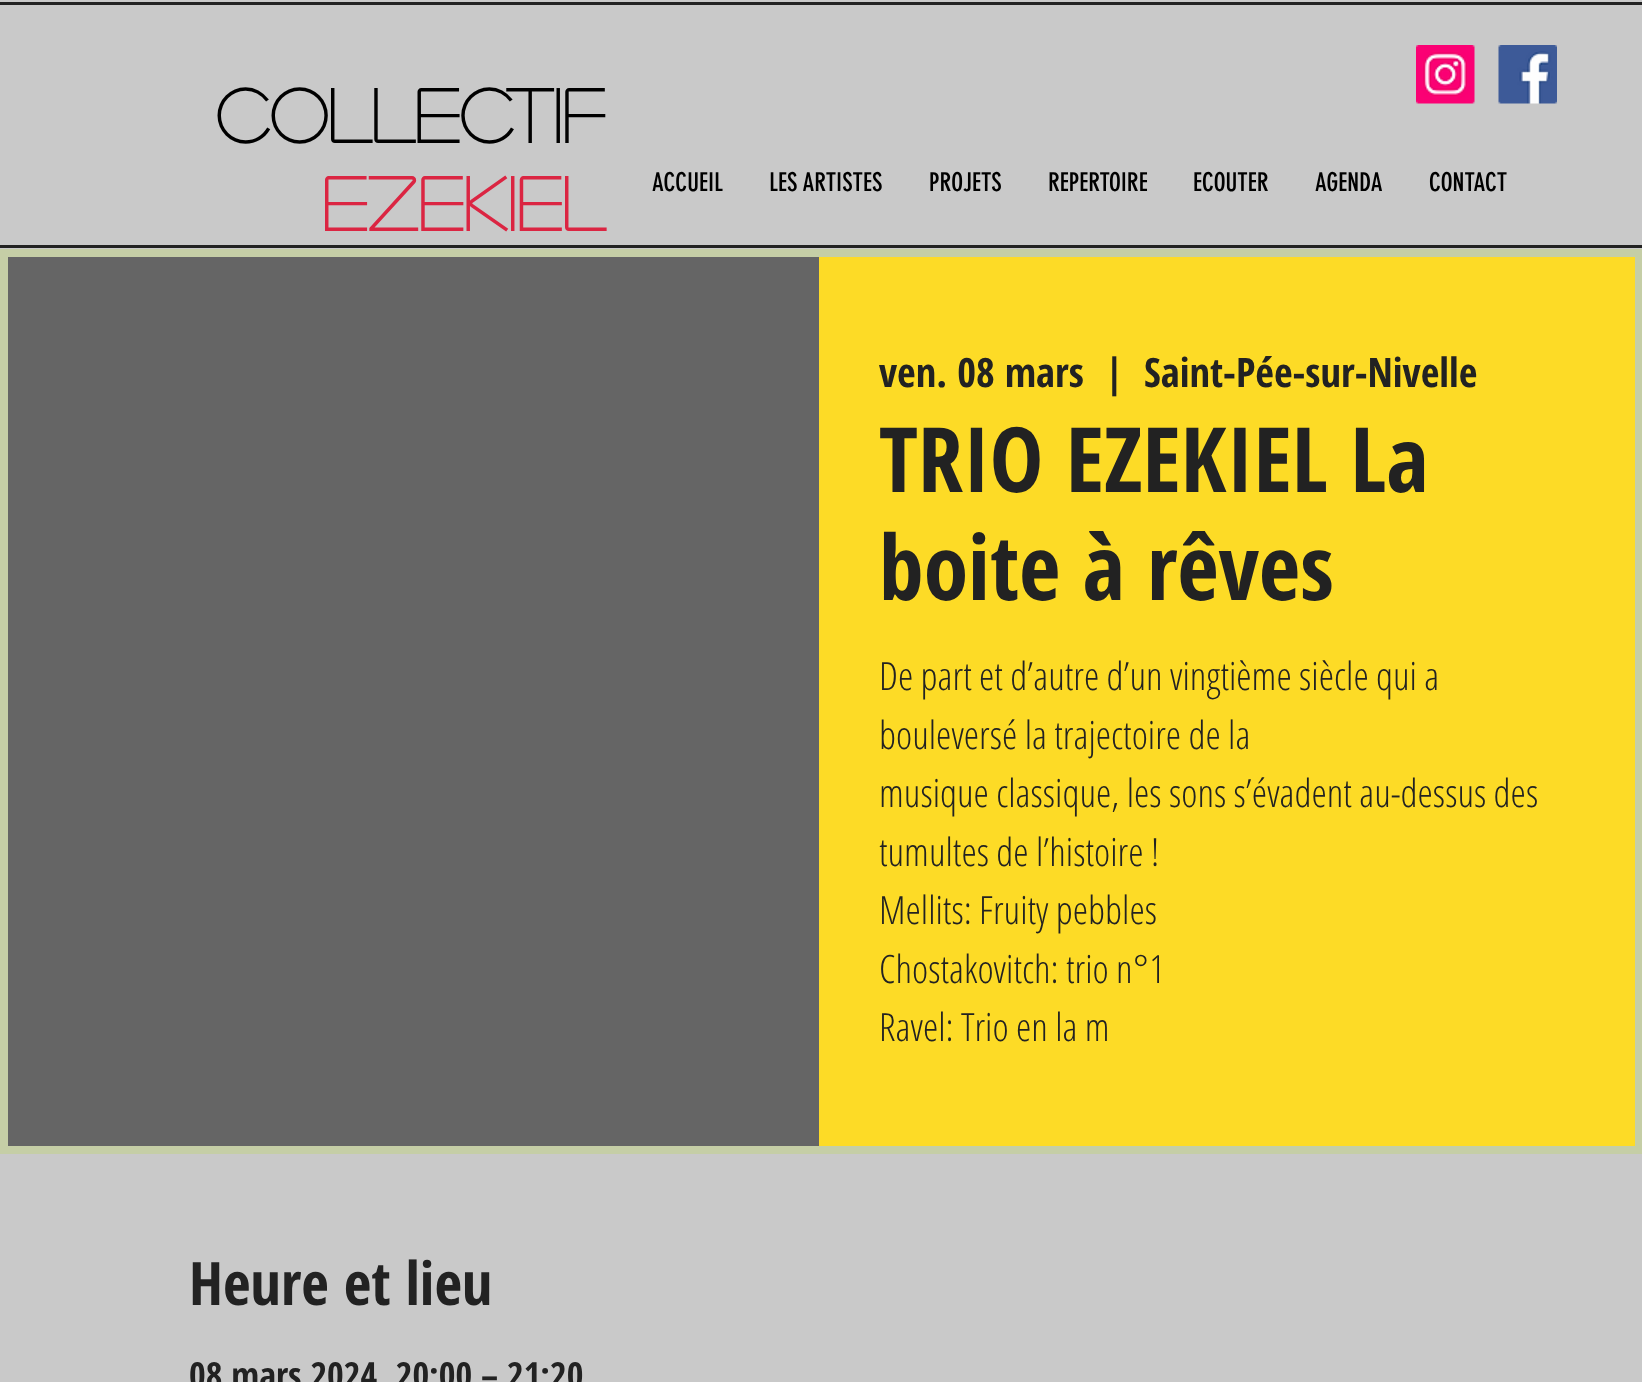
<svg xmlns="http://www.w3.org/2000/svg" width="1642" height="1382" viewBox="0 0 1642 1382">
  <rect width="100%" height="100%" fill="#c9c9c9"/>
  <path d="M0 2h1642v3H0z" fill="#222"/>
  <path d="M0 245h1642v3H0z" fill="#222"/>
  <image x="1416" y="45" width="59" height="59" href="img/1.png"/>
  <image x="1498" y="45" width="59" height="59" href="img/2.png"/>
  <path d="M4 253h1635v897H4z" fill="none" stroke="#c5cea6" stroke-width="8"/>
  <path d="M8 257h811v889H8z" fill="#656565"/>
  <path d="M819 257h816v889H819z" fill="#fddb26"/>
  <text x="216" y="143" font-family="'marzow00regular'" font-size="75" font-weight="bold" letter-spacing="0.75" fill="#000">COLLECTIF</text>
  <text x="322" y="231" font-family="'marzow00regular'" font-size="75" font-weight="bold" letter-spacing="0.75" fill="#db2542">EZEKIEL</text>
  <g font-family="'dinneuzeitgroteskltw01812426'" font-size="25.5" fill="#000">
    <text x="652" y="191">ACCUEIL</text>
    <text x="769" y="191">LES ARTISTES</text>
    <text x="929" y="191">PROJETS</text>
    <text x="1048" y="191">REPERTOIRE</text>
    <text x="1193" y="191">ECOUTER</text>
    <text x="1315" y="191">AGENDA</text>
    <text x="1429" y="191">CONTACT</text>
  </g>
  <g font-family="Open Sans Condensed" font-size="40.5" font-weight="bold" fill="#222">
    <text x="879" y="387">ven. 08 mars</text>
    <text x="1104" y="387">|</text>
    <text x="1144" y="387">Saint-Pée-sur-Nivelle</text>
  </g>
  <g font-family="Open Sans Condensed" font-size="90" font-weight="bold" fill="#222">
    <text x="879" y="492">TRIO EZEKIEL La</text>
    <text x="879" y="600">boite à rêves</text>
  </g>
  <g font-family="Open Sans Condensed" font-size="39" font-weight="300" fill="#222">
    <text x="879" y="690">De part et d’autre d’un vingtième siècle qui a</text>
    <text x="879" y="749">bouleversé la trajectoire de la</text>
    <text x="879" y="807">musique classique, les sons s’évadent au-dessus des</text>
    <text x="879" y="866">tumultes de l’histoire !</text>
    <text x="879" y="924">Mellits: Fruity pebbles</text>
    <text x="879" y="983">Chostakovitch: trio n°1</text>
    <text x="879" y="1041">Ravel: Trio en la m</text>
  </g>
  <text x="189" y="1305" font-family="Open Sans Condensed" font-size="60" font-weight="bold" fill="#222">Heure et lieu</text>
  <text x="189" y="1388" font-family="Open Sans Condensed" font-size="36" font-weight="bold" fill="#222">08 mars 2024, 20:00 – 21:20</text>
</svg>
